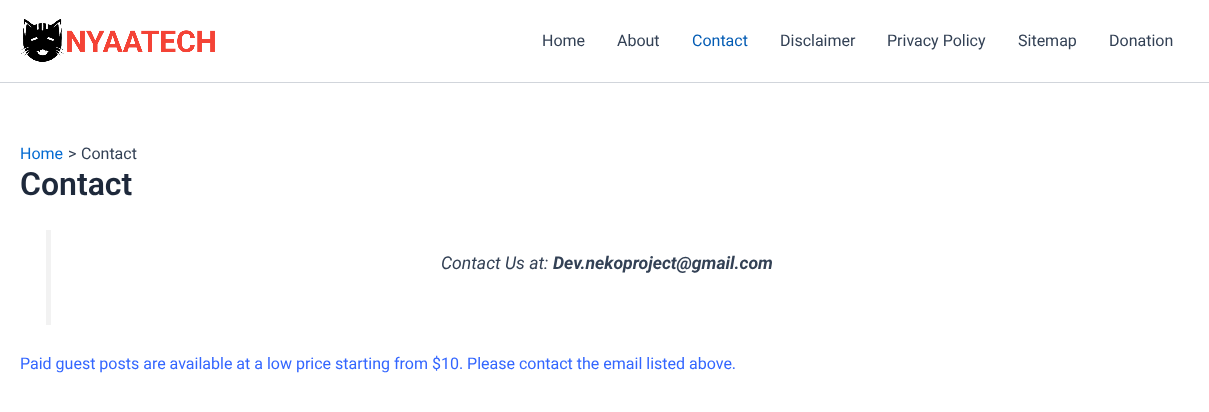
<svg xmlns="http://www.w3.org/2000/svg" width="1209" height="412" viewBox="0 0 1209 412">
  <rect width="100%" height="100%" fill="#fff"/>
  <path d="M0 82h1209v1H0z" fill="#d1d5db"/>
  <image x="20" y="19" width="195" height="43" href="img/1.png"/>
  <path d="M46 230h5v95H46z" fill="#f2f2f2"/>
  <g font-family="Roboto" font-size="16" fill="#334155">
    <text x="542" y="46">Home</text>
    <text x="617" y="46">About</text>
  </g>
  <text x="692" y="46" font-family="Roboto" font-size="16" fill="#045cb4">Contact</text>
  <g font-family="Roboto" font-size="16" fill="#334155">
    <text x="780" y="46">Disclaimer</text>
    <text x="887" y="46">Privacy Policy</text>
    <text x="1018" y="46">Sitemap</text>
    <text x="1109" y="46">Donation</text>
  </g>
  <text x="20" y="159" font-family="Roboto" font-size="16" fill="#046bd2">Home</text>
  <g font-family="Roboto" font-size="16" fill="#334155">
    <text x="68" y="159">&gt;</text>
    <text x="81" y="159">Contact</text>
  </g>
  <text x="20" y="195" font-family="Roboto" font-size="32" font-weight="600" fill="#1e293b">Contact</text>
  <text x="441" y="269" font-family="Roboto" font-size="17.6" font-style="italic" fill="#334155">Contact Us at:</text>
  <text x="553" y="269" font-family="Roboto" font-size="17.6" font-weight="bold" font-style="italic" fill="#334155">Dev.nekoproject@gmail.com</text>
  <text x="20" y="369" font-family="Roboto" font-size="16" fill="#36f">Paid guest posts are available at a low price starting from $10. Please contact the email listed above.</text>
</svg>
